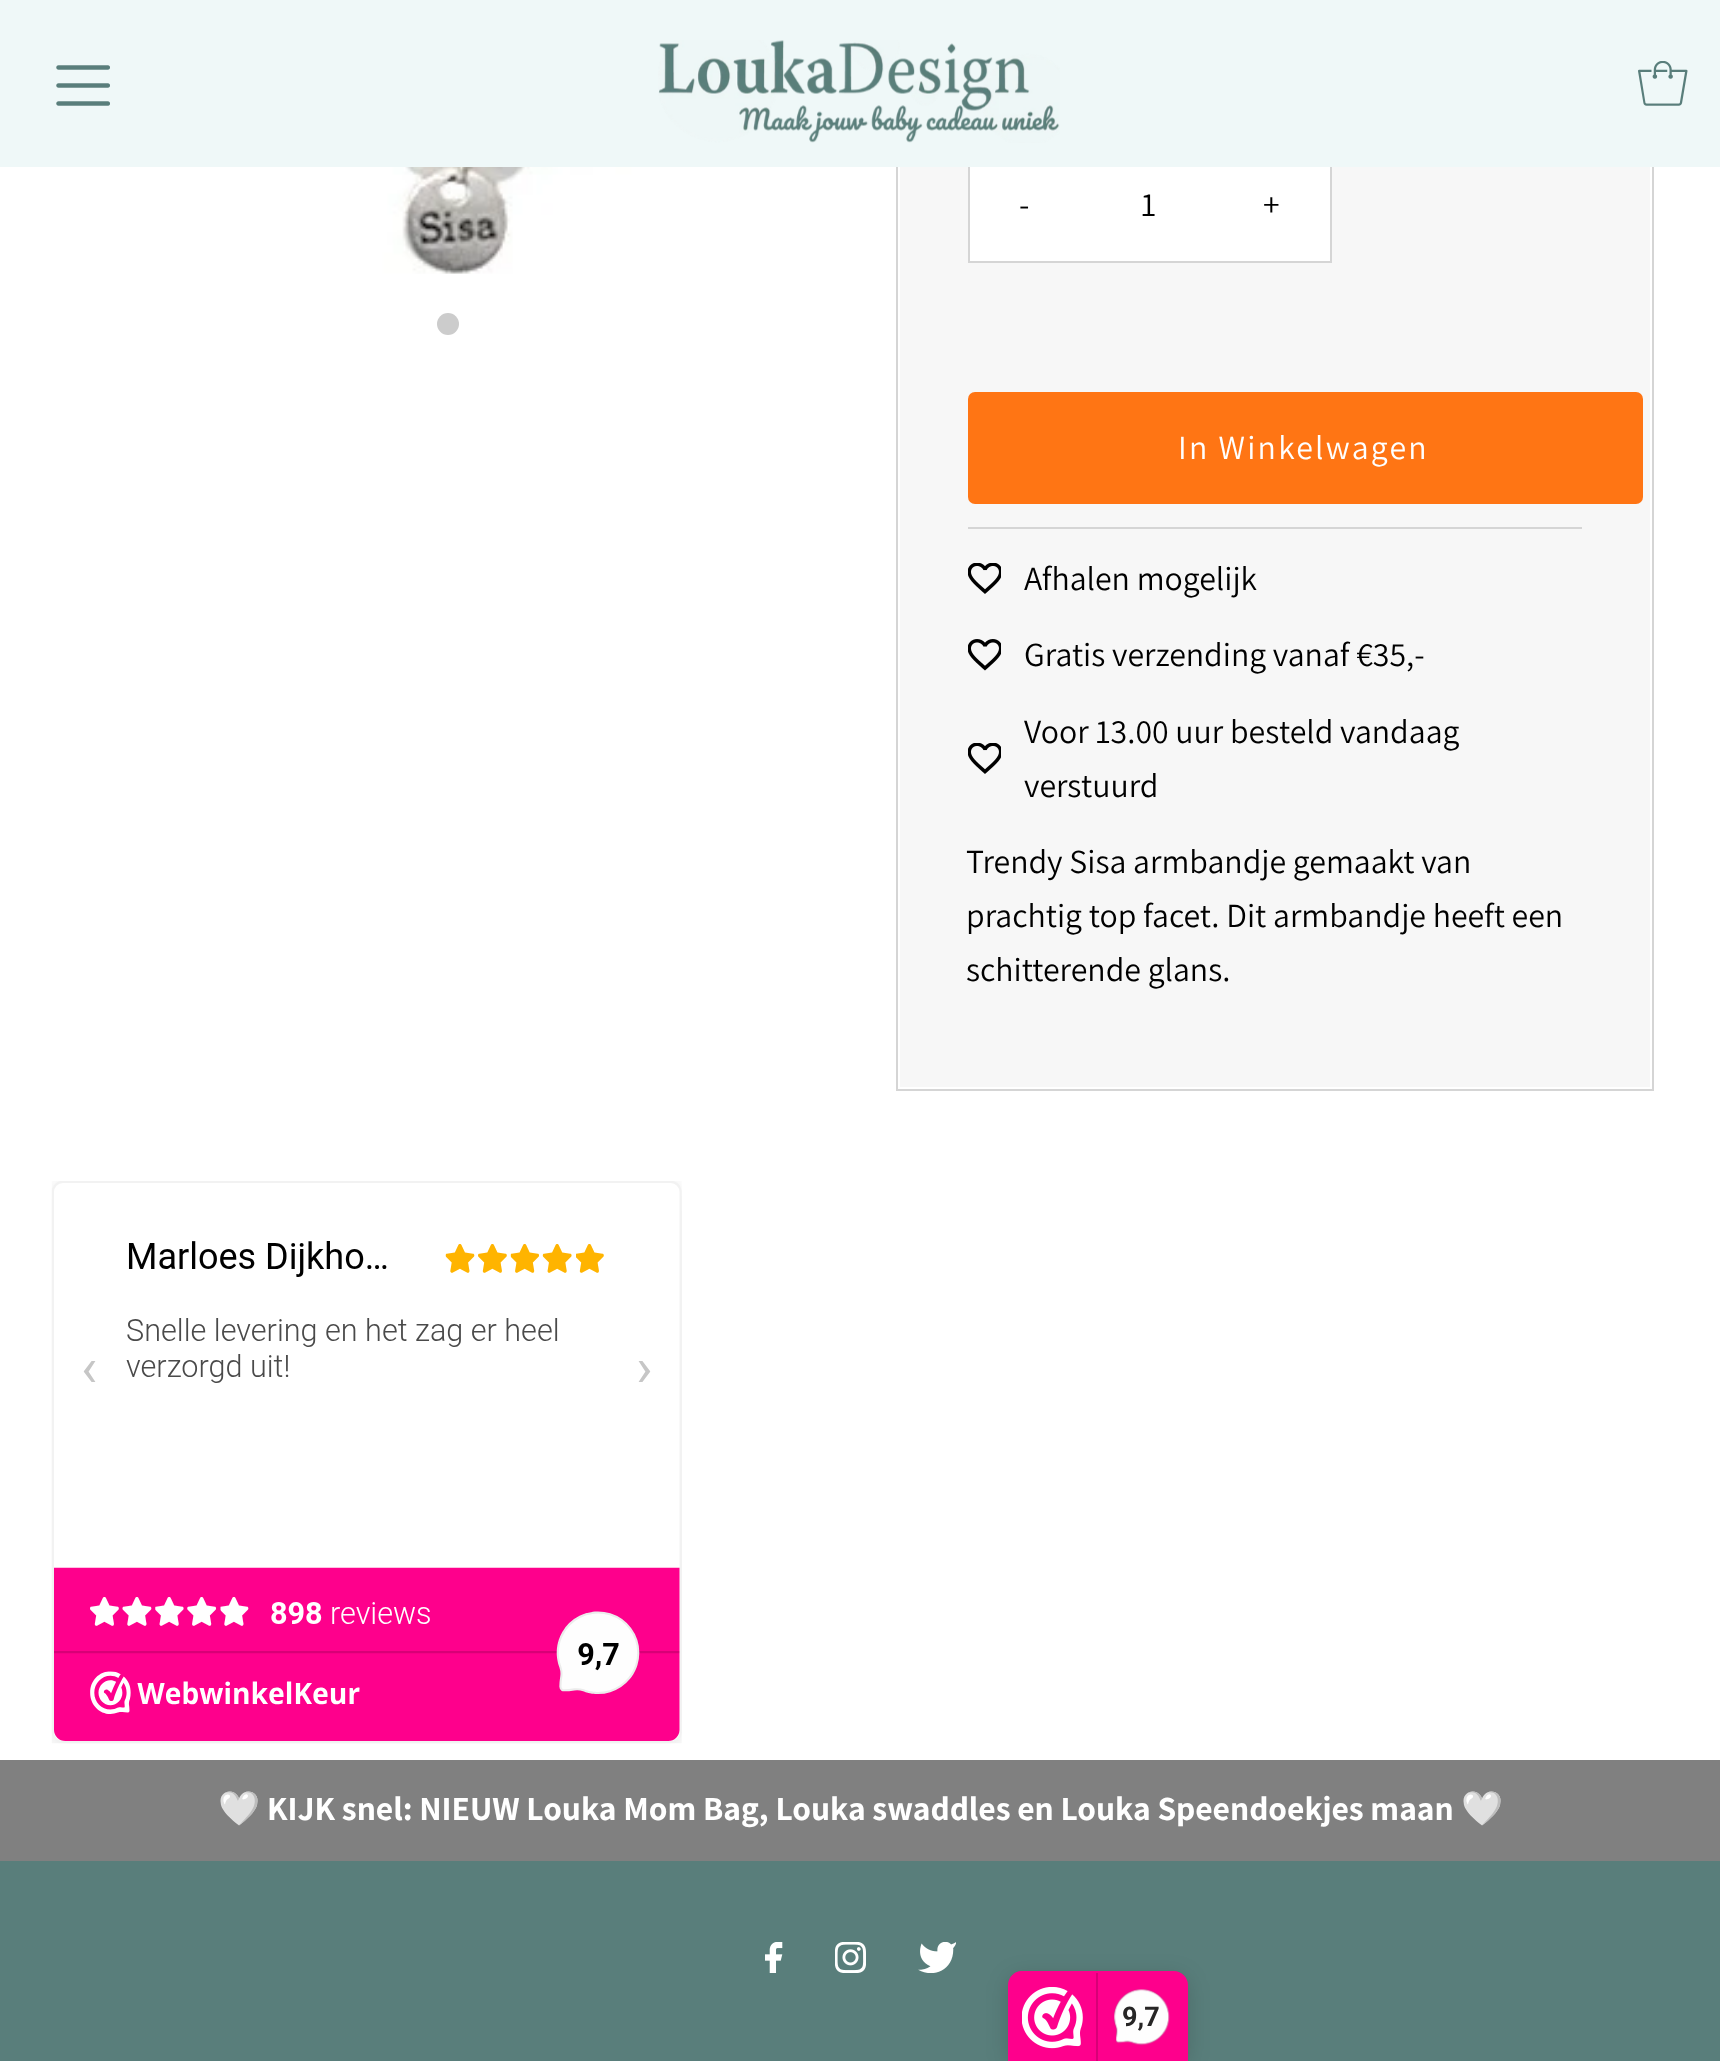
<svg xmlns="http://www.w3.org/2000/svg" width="1720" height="2061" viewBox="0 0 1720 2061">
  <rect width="100%" height="100%" fill="#fff"/>
  <path d="M900 167h750v920H900z" fill="#f7f7f7"/>
  <path d="M897 -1h756v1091H897z" fill="none" stroke="#d5d5d5" stroke-width="2"/>
  <path d="M969 147h362v115H969z" fill="none" stroke="#d5d5d5" stroke-width="2"/>
  <path d="M0 0h1720v167H0z" fill="#eff8f8"/>
  <image x="56" y="65" width="54" height="41" href="img/1.png"/>
  <image x="658" y="40" width="402" height="103" href="img/2.png"/>
  <image x="1638" y="61" width="50" height="45" href="img/3.png"/>
  <image x="175" y="167" width="575" height="107" href="img/4.png"/>
  <circle cx="448" cy="324" r="11" fill="#ccc"/>
  <path d="M970 167h360v94H970z" fill="#fff"/>
  <path d="M968 527h614v2H968z" fill="#d5d5d5"/>
  <rect x="968" y="392" width="675" height="112" rx="7" fill="#ff7514"/>
  <image x="968" y="563" width="33" height="31" href="img/5.png"/>
  <image x="968" y="639" width="33" height="32" href="img/6.png"/>
  <image x="968" y="743" width="33" height="31" href="img/5.png"/>
  <image x="51" y="1181" width="631" height="563" href="img/7.png"/>
  <path d="M0 1760h1720v101H0z" fill="#808080"/>
  <path d="M0 1861h1720v200H0z" fill="#597e7b"/>
  <image x="765" y="1942" width="18" height="31" href="img/8.png"/>
  <image x="835" y="1942" width="31" height="31" href="img/9.png"/>
  <image x="918" y="1942" width="38" height="31" href="img/10.png"/>
  <rect x="1008" y="1976" width="180" height="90" rx="14" fill="#00000026" filter="blur(11px)"/>
  <path d="M1022 1971H1174C1181.5 1971 1188 1977.5 1188 1985V2061H1008V1985C1008 1977.5 1014.5 1971 1022 1971Z" fill="#fe008c"/>
  <image x="1022" y="1987" width="61" height="62" href="img/11.png"/>
  <path d="M1096 1973h2v88H1096z" fill="#d80077"/>
  <image x="1114" y="1989" width="56" height="57" href="img/12.png"/>
  <text x="1019" y="216" font-family="Assistant" font-size="33.75" letter-spacing="2.25" fill="#000">-</text>
  <text x="1141" y="216" font-family="Assistant" font-size="33.75" fill="#000">1</text>
  <text x="1263" y="216" font-family="Assistant" font-size="33.75" letter-spacing="2.25" fill="#000">+</text>
  <text x="1178" y="459" font-family="Assistant" font-size="33.75" letter-spacing="2.25" fill="#fff">In Winkelwagen</text>
  <g font-family="Assistant" font-size="33.75" fill="#000">
    <text x="1024" y="590">Afhalen mogelijk</text>
    <text x="1024" y="666">Gratis verzending vanaf €35,-</text>
    <text x="1024" y="743">Voor 13.00 uur besteld vandaag</text>
    <text x="1024" y="797">verstuurd</text>
    <text x="966" y="873">Trendy Sisa armbandje gemaakt van</text>
    <text x="966" y="927">prachtig top facet. Dit armbandje heeft een</text>
    <text x="966" y="981">schitterende glans.</text>
  </g>
  <text x="218" y="1820" font-family="Noto Color Emoji" font-size="33.75" font-weight="bold" fill="#fff">🤍</text>
  <text x="267" y="1820" font-family="Assistant" font-size="33.75" font-weight="bold" fill="#fff">KIJK snel: NIEUW Louka Mom Bag, Louka swaddles en Louka Speendoekjes maan</text>
  <text x="1461" y="1820" font-family="Noto Color Emoji" font-size="33.75" font-weight="bold" fill="#fff">🤍</text>
  <text x="1122" y="2026" font-family="Roboto" font-size="27" font-weight="bold" fill="#272626">9,7</text>
</svg>
